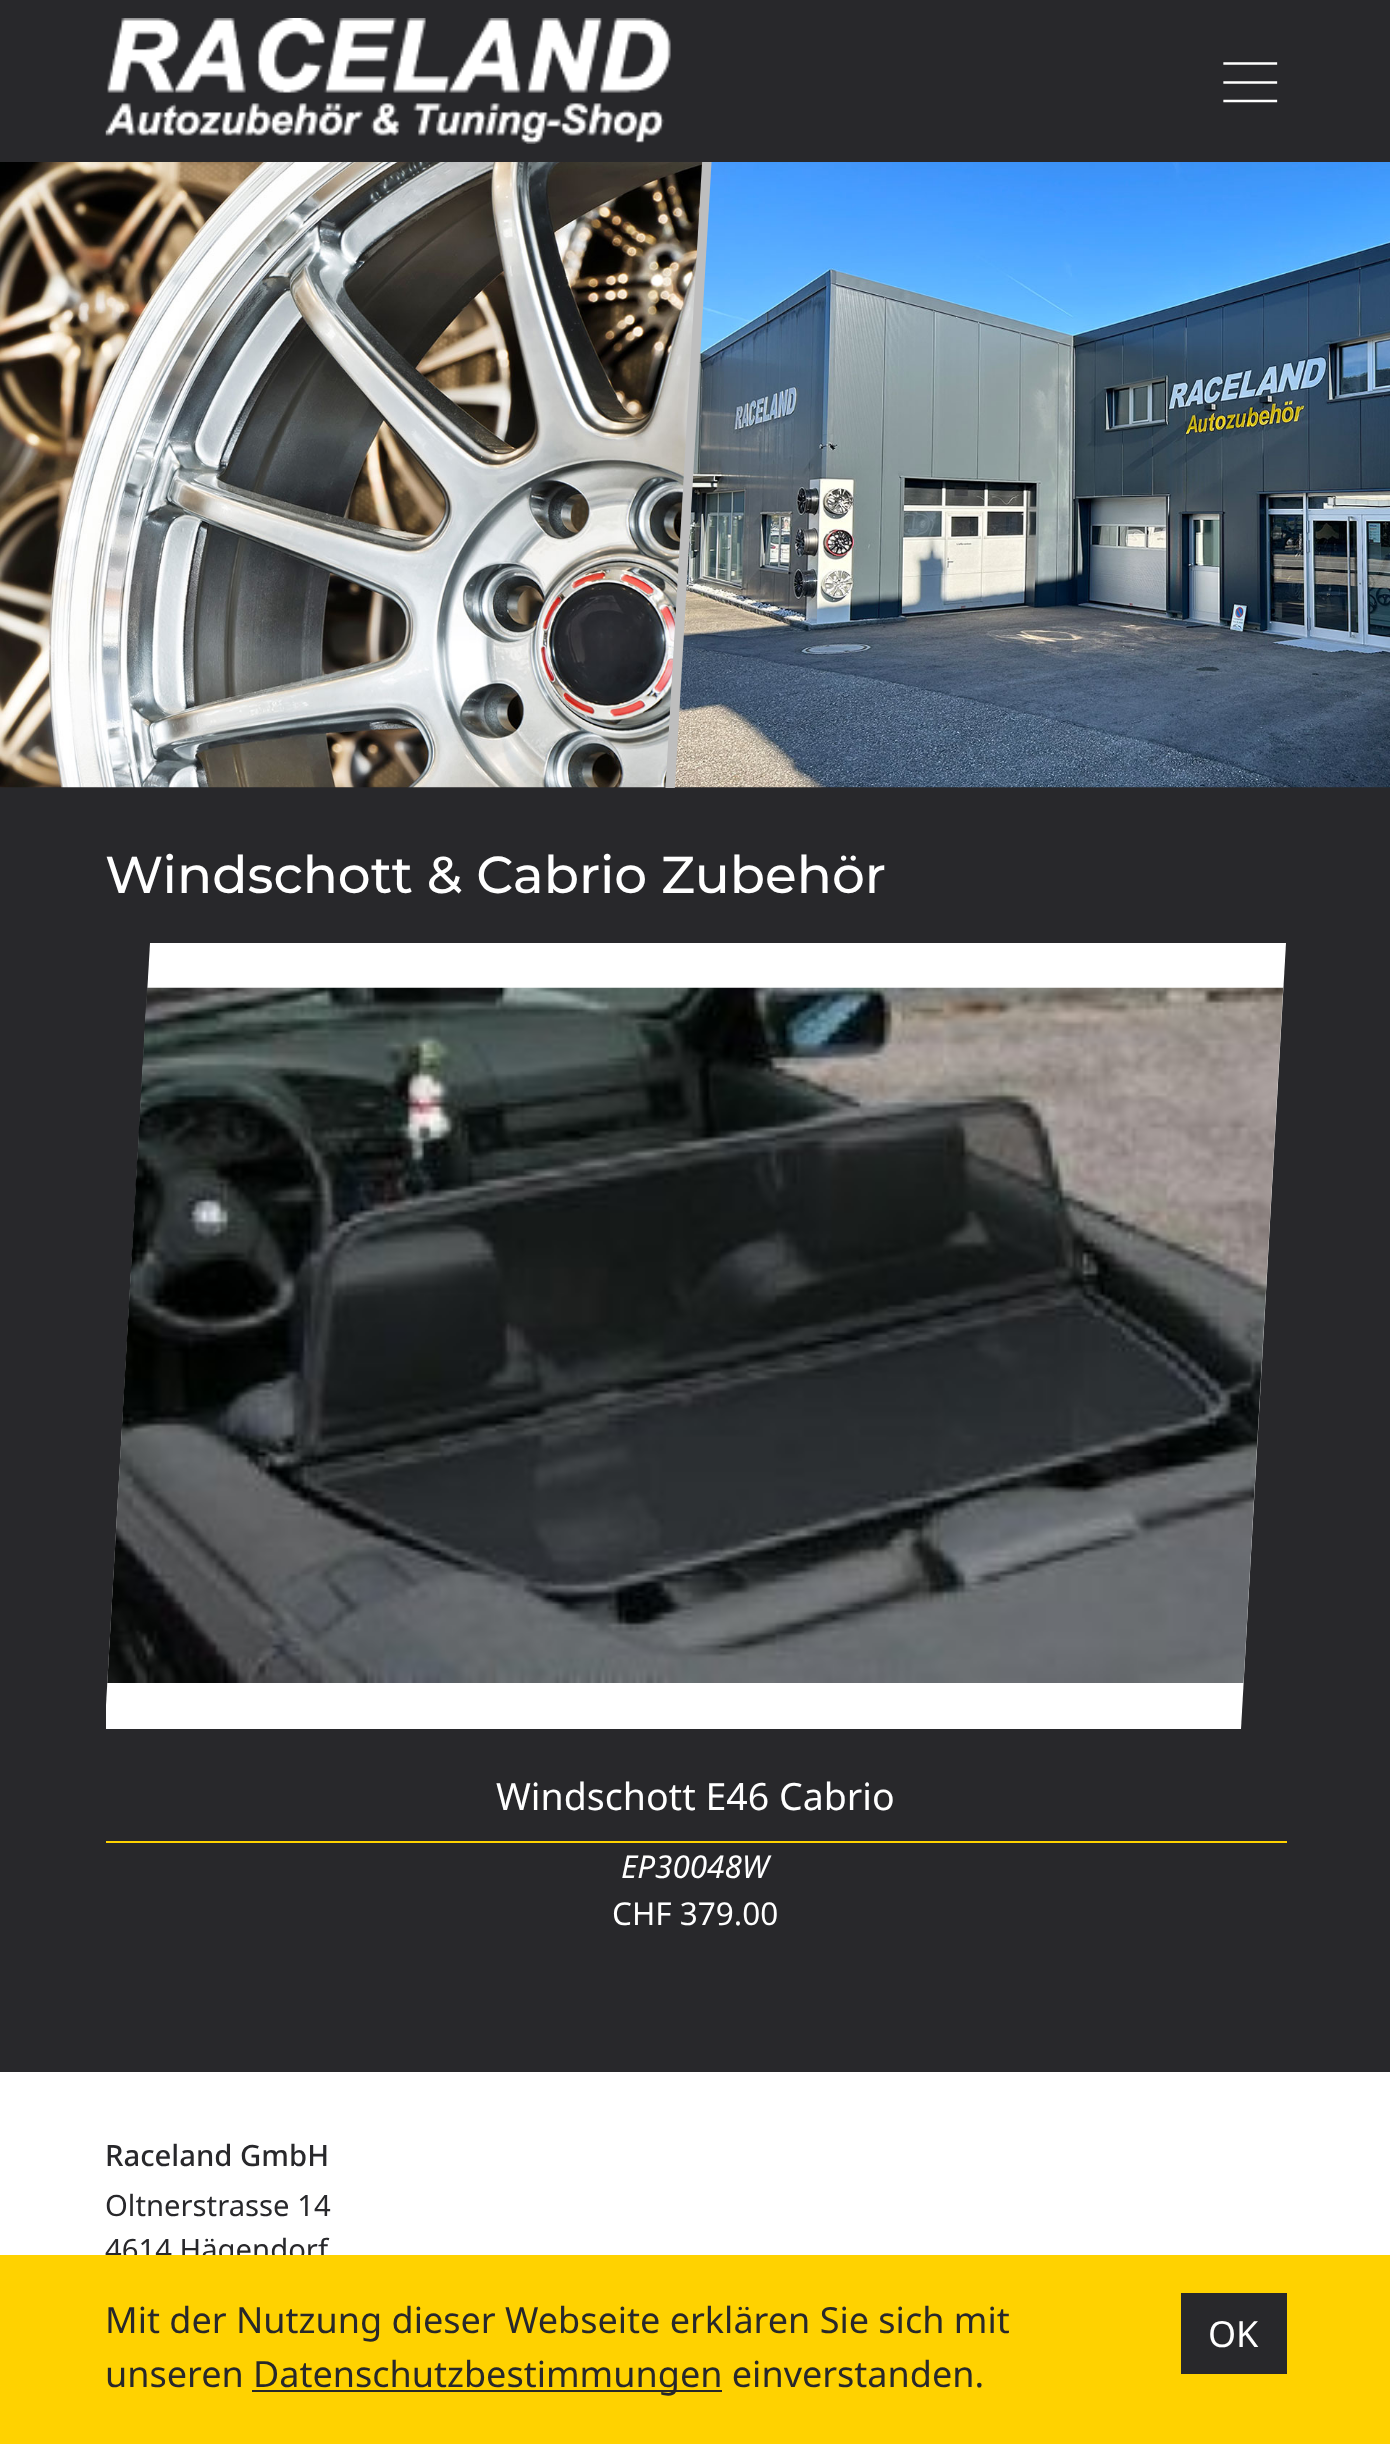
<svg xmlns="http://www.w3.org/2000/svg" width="1390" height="2444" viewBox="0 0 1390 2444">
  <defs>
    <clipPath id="clip1"><path d="M376 162h625v626H376z"/></clipPath>
  </defs>
  <rect width="100%" height="100%" fill="#28282b"/>
  <image x="105" y="18" width="566" height="126" href="img/1.png"/>
  <path d="M1224.5 63.5H1276M1224.5 82.5H1276M1224.5 101H1276" fill="none" stroke="#fff" stroke-width="2.3" stroke-linecap="square"/>
  <image x="0" y="162" width="1390" height="626" href="img/2.png"/>
  <g clip-path="url(#clip1)">
    <path d="M710.5 99.5L666.5 850.5" fill="none" stroke="#bebebe" stroke-width="9.4"/>
  </g>
  <path d="M106 1705L150 943H1286L1241 1729H106Z" fill="#fff"/>
  <image x="107" y="987" width="1177" height="696" href="img/3.png"/>
  <path d="M106 1841h1181v2H106z" fill="#ffd200"/>
  <path d="M0 2072h1390v183H0z" fill="#fff"/>
  <text x="105" y="893" font-family="Montserrat" font-size="51.75" font-weight="500" fill="#fff">Windschott &amp; Cabrio Zubehör</text>
  <text x="496" y="1810" font-family="Noto Sans" font-size="37.5" fill="#fff">Windschott E46 Cabrio</text>
  <text x="621" y="1878" font-family="Noto Sans" font-size="31.5" font-style="italic" fill="#fff">EP30048W</text>
  <text x="612" y="1925" font-family="Noto Sans" font-size="31.5" fill="#fff">CHF 379.00</text>
  <text x="105" y="2166" font-family="Noto Sans" font-size="29.25" font-weight="500" fill="#28282b">Raceland GmbH</text>
  <g font-family="Noto Sans" font-size="29.25" fill="#28282b">
    <text x="105" y="2216">Oltnerstrasse 14</text>
    <text x="105" y="2260">4614 Hägendorf</text>
  </g>
  <path d="M0 2255h1390v189H0z" fill="#ffd200"/>
  <path d="M252 2390h470v2H252z" fill="#28282b"/>
  <g font-family="Noto Sans" font-size="36" fill="#28282b">
    <text x="253" y="2387">Datenschutzbestimmungen einverstanden.</text>
    <text x="105" y="2387">unseren</text>
    <text x="105" y="2333">Mit der Nutzung dieser Webseite erklären Sie sich mit</text>
  </g>
  <path d="M1181 2293h106v81H1181z" fill="#28282b"/>
  <text x="1208" y="2347" font-family="Noto Sans" font-size="36" fill="#fff">OK</text>
</svg>
